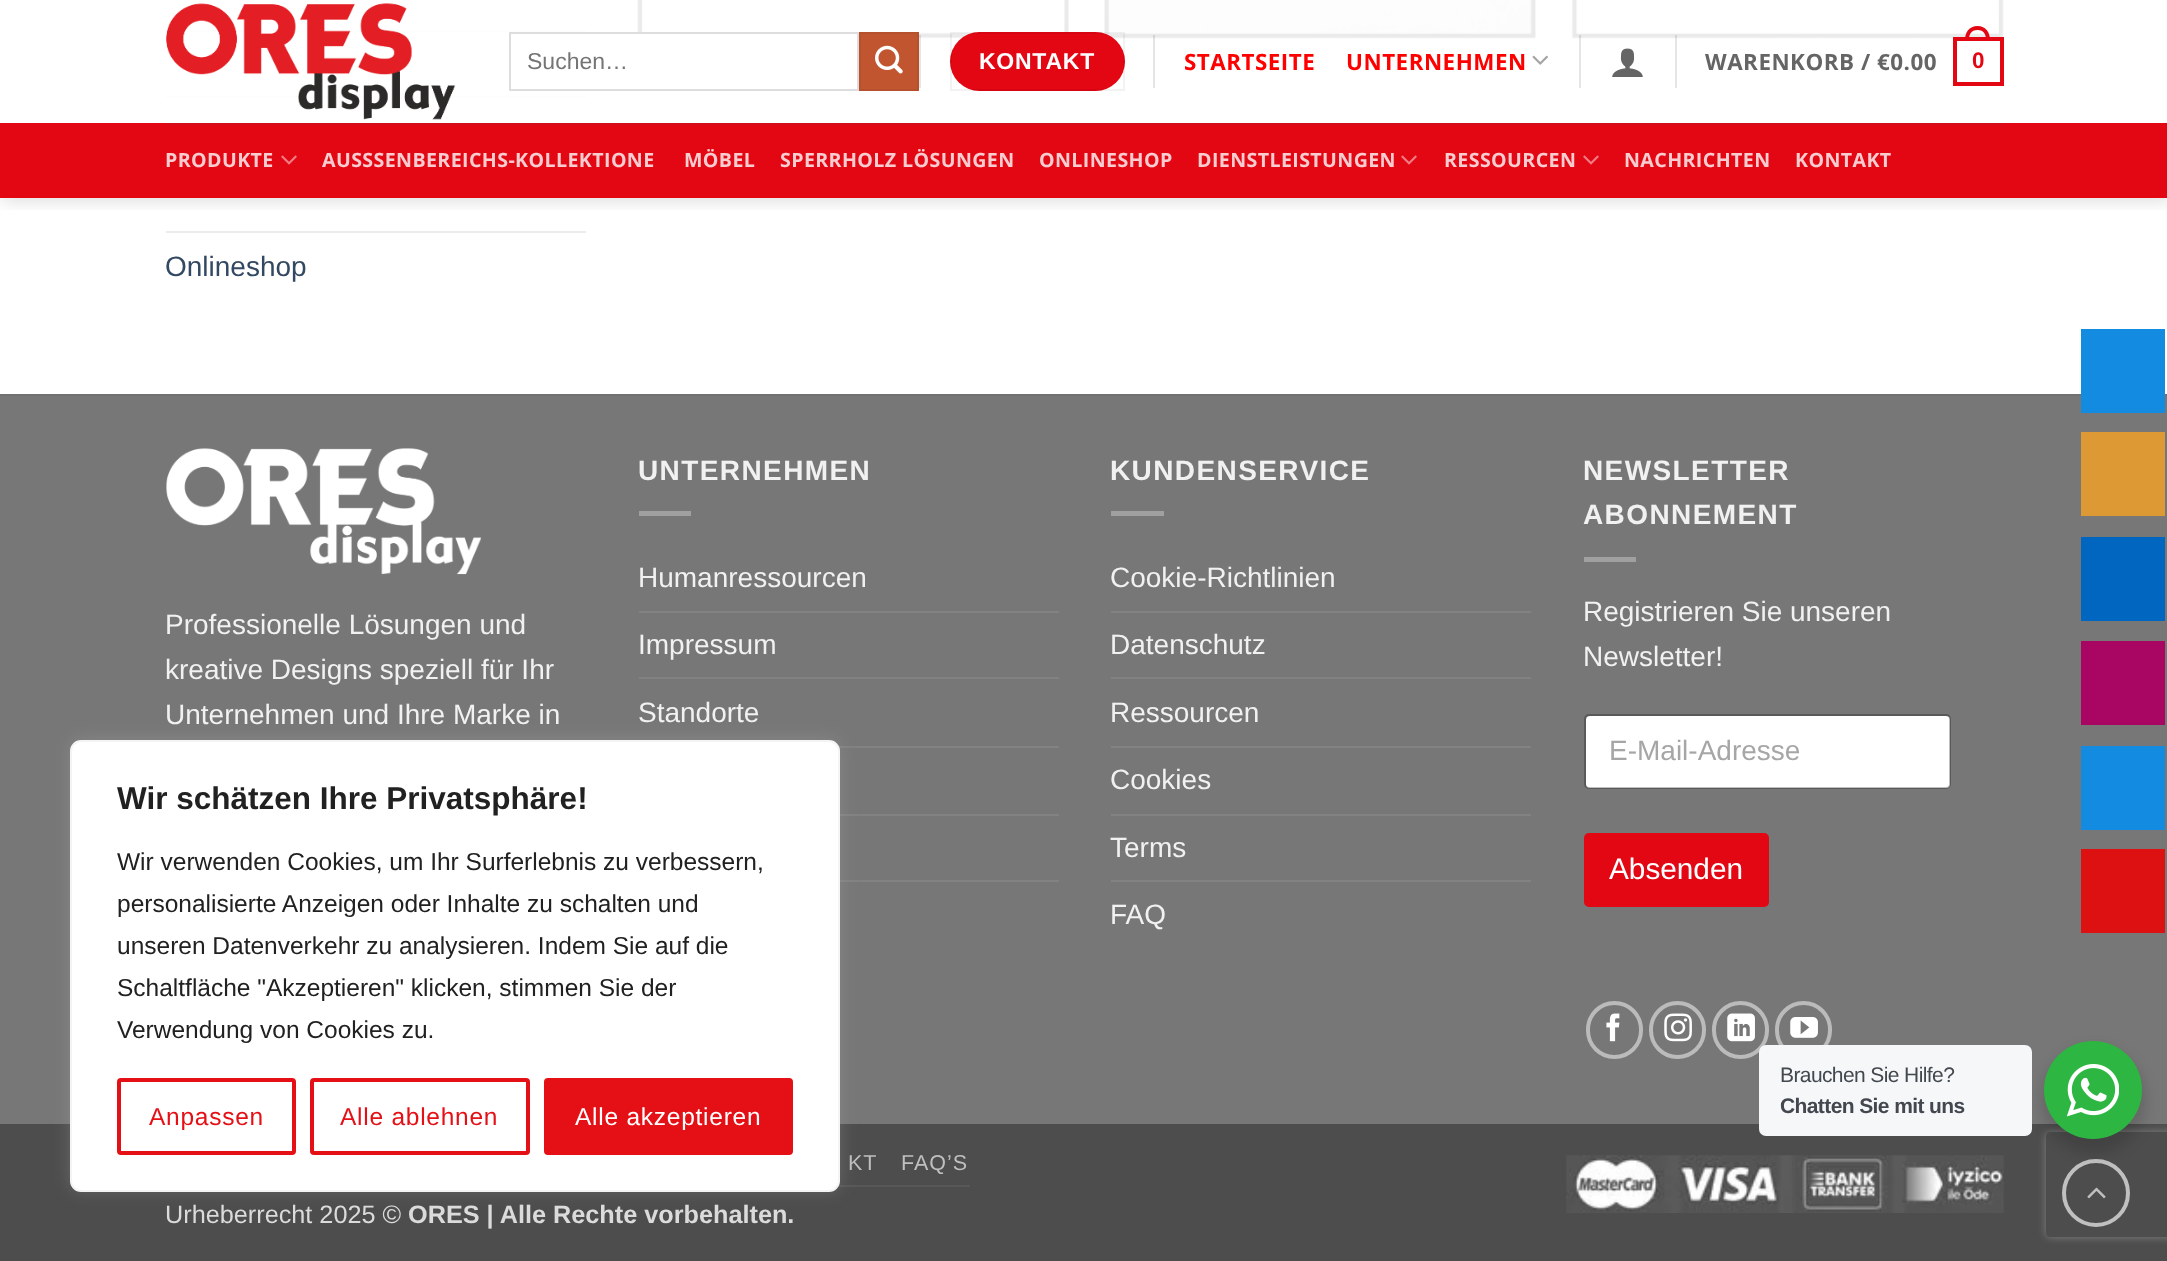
<svg xmlns="http://www.w3.org/2000/svg" width="2167" height="1261" viewBox="0 0 2167 1261">
  <defs>
    <clipPath id="clip1"><path d="M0 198h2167v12H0z"/></clipPath>
    <clipPath id="clip2"><path d="M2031 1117H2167V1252H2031ZM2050 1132H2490C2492 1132 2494 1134 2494 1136V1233C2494 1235 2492 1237 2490 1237H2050C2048 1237 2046 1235 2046 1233V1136C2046 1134 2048 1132 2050 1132Z" clip-rule="evenodd"/></clipPath>
  </defs>
  <rect width="100%" height="100%" fill="#fff"/>
  <image x="637" y="0" width="433" height="39" href="img/6.png"/>
  <image x="1104" y="0" width="432" height="39" href="img/7.png"/>
  <image x="1571" y="0" width="433" height="39" href="img/8.png"/>
  <path d="M166 30h420v2H166z" fill="#ececec"/>
  <path d="M166 96h420v2H166z" fill="#ececec"/>
  <g clip-path="url(#clip1)">
    <path d="M2 2h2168v198H2z" fill="#00000026" filter="blur(9px)"/>
  </g>
  <path d="M166 0h1838v98H166z" fill="#ffffffe6"/>
  <image x="166" y="3" width="290" height="117" href="img/1.png"/>
  <path d="M637 34h220v4H637z" fill="#fff"/>
  <path d="M510 33h348v57H510z" fill="none" stroke="#ddd" stroke-width="2"/>
  <path d="M860 33h58v57H860z" fill="#c05530" stroke="#b6512e" stroke-width="2"/>
  <image x="875" y="45" width="28" height="29" href="img/2.png"/>
  <path d="M919 35h2v53H919z" fill="#0000001a"/>
  <rect x="950" y="32" width="175" height="59" rx="29.5" fill="#e30613"/>
  <path d="M951 33h173v57H951z" fill="none" stroke="#0000000d" stroke-width="2"/>
  <path d="M1153 35h2v53H1153z" fill="#0000001a"/>
  <image x="1532" y="55" width="16" height="10" href="img/3.png"/>
  <path d="M1579 35h2v53H1579z" fill="#0000001a"/>
  <image x="1612" y="48" width="31" height="29" href="img/4.png"/>
  <path d="M1675 35h2v53H1675z" fill="#0000001a"/>
  <path d="M1955 39h47v45H1955z" fill="none" stroke="#e30613" stroke-width="4"/>
  <path d="M1977.5 26C1986 26 1990 32.5 1990 40H1965C1965 32.5 1969 26 1977.5 26ZM1977.5 30C1984 30 1986 34.5 1986 40H1969C1969 34.5 1971 30 1977.5 30Z" fill="#e30613" fill-rule="evenodd"/>
  <path d="M0 123h2167v75H0z" fill="#e30613"/>
  <path d="M166 123h1838v2H166z" fill="#d40d19"/>
  <image x="281" y="155" width="16" height="10" href="img/5.png"/>
  <image x="1401" y="155" width="16" height="10" href="img/5.png"/>
  <image x="1583" y="155" width="16" height="10" href="img/5.png"/>
  <path d="M166 231h420v2H166z" fill="#ececec"/>
  <path d="M0 396h2167v728H0z" fill="#777"/>
  <path d="M0 394h2167v2H0z" fill="#717171"/>
  <image x="166" y="448" width="316" height="127" href="img/9.png"/>
  <path d="M639 511h52v5H639z" fill="#a0a0a0"/>
  <path d="M639 611h420v2H639z" fill="#828282"/>
  <path d="M639 677h420v2H639z" fill="#828282"/>
  <path d="M838 746h221v2H838z" fill="#828282"/>
  <path d="M840 814h219v2H840z" fill="#828282"/>
  <path d="M840 880h219v2H840z" fill="#828282"/>
  <path d="M1111 511h53v5H1111z" fill="#a0a0a0"/>
  <path d="M1111 611h420v2H1111z" fill="#828282"/>
  <path d="M1111 677h420v2H1111z" fill="#828282"/>
  <path d="M1111 746h420v2H1111z" fill="#828282"/>
  <path d="M1111 814h420v2H1111z" fill="#828282"/>
  <path d="M1111 880h420v2H1111z" fill="#828282"/>
  <path d="M1584 557h52v5H1584z" fill="#a0a0a0"/>
  <rect x="1586" y="716" width="364" height="72" rx="4" fill="#fff"/>
  <rect x="1585" y="715" width="365" height="73" rx="4" fill="none" stroke="#00000040" stroke-width="2"/>
  <rect x="1584" y="833" width="185" height="74" rx="5" fill="#e30613"/>
  <rect x="1588" y="1003" width="53" height="54" rx="26.5" fill="none" stroke="#bbb" stroke-width="4"/>
  <image x="1606" y="1013" width="14" height="29" href="img/10.png"/>
  <rect x="1651" y="1003" width="53" height="54" rx="26.5" fill="none" stroke="#bbb" stroke-width="4"/>
  <image x="1664" y="1013" width="28" height="29" href="img/11.png"/>
  <rect x="1714" y="1003" width="53" height="54" rx="26.5" fill="none" stroke="#bbb" stroke-width="4"/>
  <image x="1727" y="1013" width="28" height="29" href="img/12.png"/>
  <rect x="1777" y="1003" width="53" height="54" rx="26.5" fill="none" stroke="#bbb" stroke-width="4"/>
  <image x="1790" y="1017" width="28" height="21" href="img/13.png"/>
  <path d="M0 1124h2167v137H0z" fill="#4d4d4d"/>
  <path d="M838 1185h132v2H838z" fill="#585858"/>
  <image x="1566" y="1155" width="438" height="58" href="img/14.png"/>
  <g clip-path="url(#clip2)">
    <rect x="2046" y="1132" width="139" height="105" rx="4" fill="#808080" filter="blur(4.5px)"/>
  </g>
  <circle cx="2096" cy="1193" r="32" fill="none" stroke="#c0c0c0" stroke-width="4"/>
  <image x="2087" y="1187" width="19" height="12" href="img/15.png"/>
  <path d="M2081 329h84v84H2081z" fill="#128be0"/>
  <path d="M2081 432h84v84H2081z" fill="#d93"/>
  <path d="M2081 537h84v84H2081z" fill="#0066bf"/>
  <path d="M2081 641h84v84H2081z" fill="#a80662"/>
  <path d="M2081 746h84v84H2081z" fill="#128be0"/>
  <path d="M2081 849h84v84H2081z" fill="#d11"/>
  <rect x="70" y="739" width="770" height="451" rx="11" fill="#acabab4d" filter="blur(9px)"/>
  <rect x="71" y="741" width="768" height="450" rx="10" fill="#fff" stroke="#f4f4f4" stroke-width="2"/>
  <rect x="119" y="1080" width="175" height="73" rx="2" fill="none" stroke="#e51016" stroke-width="4"/>
  <rect x="312" y="1080" width="216" height="73" rx="2" fill="none" stroke="#e51016" stroke-width="4"/>
  <rect x="546" y="1080" width="245" height="73" rx="2" fill="#e51016" stroke="#e51016" stroke-width="4"/>
  <rect x="2041" y="1048" width="105" height="105" rx="52.5" fill="#00000024" filter="blur(7px)"/>
  <rect x="1759" y="1045" width="273" height="91" rx="7" fill="#f5f7f9"/>
  <circle cx="2093" cy="1090" r="49" fill="#2db742"/>
  <image x="2067" y="1064" width="52" height="53" href="img/16.png"/>
  <text x="527" y="69" font-family="Liberation Sans" font-size="23" fill="#757575">Suchen…</text>
  <text x="979" y="69" font-family="Liberation Sans" font-size="23" font-weight="bold" letter-spacing="0.75" fill="#fff">KONTAKT</text>
  <g font-family="Open Sans" font-size="22.4" font-weight="bold" letter-spacing="0.5" fill="#f00">
    <text x="1184" y="70">STARTSEITE</text>
    <text x="1346" y="70">UNTERNEHMEN</text>
  </g>
  <text x="1705" y="70" font-family="Open Sans" font-size="22.4" font-weight="bold" letter-spacing="0.5" fill="#656565">WARENKORB / €0.00</text>
  <text x="1972" y="68" font-family="Liberation Sans" font-size="22.4" font-weight="bold" letter-spacing="0.5" fill="#e30613">0</text>
  <g font-family="Open Sans" font-size="19.6" font-weight="bold" letter-spacing="0.4" fill="#f9cdd0">
    <text x="165" y="167">PRODUKTE</text>
    <text x="322" y="167">AUSSSENBEREICHS-KOLLEKTIONE</text>
    <text x="684" y="167">MÖBEL</text>
    <text x="780" y="167">SPERRHOLZ LÖSUNGEN</text>
    <text x="1039" y="167">ONLINESHOP</text>
    <text x="1197" y="167">DIENSTLEISTUNGEN</text>
    <text x="1444" y="167">RESSOURCEN</text>
    <text x="1624" y="167">NACHRICHTEN</text>
    <text x="1795" y="167">KONTAKT</text>
  </g>
  <text x="165" y="276" font-family="Liberation Sans" font-size="28" fill="#334862">Onlineshop</text>
  <g font-family="Liberation Sans" font-size="28" fill="#f1f1f1">
    <text x="165" y="634">Professionelle Lösungen und</text>
    <text x="165" y="679">kreative Designs speziell für Ihr</text>
    <text x="165" y="724">Unternehmen und Ihre Marke in</text>
  </g>
  <text x="638" y="480" font-family="Liberation Sans" font-size="28" font-weight="bold" letter-spacing="1.4" fill="#f1f1f1">UNTERNEHMEN</text>
  <g font-family="Liberation Sans" font-size="28" fill="#f1f1f1">
    <text x="638" y="587">Humanressourcen</text>
    <text x="638" y="654">Impressum</text>
    <text x="638" y="722">Standorte</text>
  </g>
  <text x="1110" y="480" font-family="Liberation Sans" font-size="28" font-weight="bold" letter-spacing="1.4" fill="#f1f1f1">KUNDENSERVICE</text>
  <g font-family="Liberation Sans" font-size="28" fill="#f1f1f1">
    <text x="1110" y="587">Cookie-Richtlinien</text>
    <text x="1110" y="654">Datenschutz</text>
    <text x="1110" y="722">Ressourcen</text>
    <text x="1110" y="789">Cookies</text>
    <text x="1110" y="857">Terms</text>
    <text x="1110" y="924">FAQ</text>
  </g>
  <g font-family="Liberation Sans" font-size="28" font-weight="bold" letter-spacing="1.4" fill="#f1f1f1">
    <text x="1583" y="480">NEWSLETTER</text>
    <text x="1583" y="524">ABONNEMENT</text>
  </g>
  <g font-family="Liberation Sans" font-size="28" fill="#f1f1f1">
    <text x="1583" y="621">Registrieren Sie unseren</text>
    <text x="1583" y="666">Newsletter!</text>
  </g>
  <text x="1609" y="760" font-family="Liberation Sans" font-size="28" fill="#a6a6a6">E-Mail-Adresse</text>
  <text x="1609" y="879" font-family="Liberation Sans" font-size="29.75" fill="#fff">Absenden</text>
  <g font-family="Liberation Sans" font-size="21.5" letter-spacing="1" fill="#bfbfbf">
    <text x="848" y="1170">KT</text>
    <text x="901" y="1170">FAQ’S</text>
  </g>
  <text x="165" y="1223" font-family="Liberation Sans" font-size="25.25" fill="#dbdbdb">Urheberrecht 2025 ©</text>
  <text x="408" y="1223" font-family="Liberation Sans" font-size="25.25" font-weight="bold" fill="#dbdbdb">ORES | Alle Rechte vorbehalten.</text>
  <text x="117" y="809" font-family="Liberation Sans" font-size="31.5" font-weight="bold" fill="#212121">Wir schätzen Ihre Privatsphäre!</text>
  <g font-family="Liberation Sans" font-size="24.5" fill="#212121">
    <text x="117" y="870">Wir verwenden Cookies, um Ihr Surferlebnis zu verbessern,</text>
    <text x="117" y="912">personalisierte Anzeigen oder Inhalte zu schalten und</text>
    <text x="117" y="954">unseren Datenverkehr zu analysieren. Indem Sie auf die</text>
    <text x="117" y="996">Schaltfläche "Akzeptieren" klicken, stimmen Sie der</text>
    <text x="117" y="1038">Verwendung von Cookies zu.</text>
  </g>
  <g font-family="Liberation Sans" font-size="24.5" letter-spacing="0.75" fill="#e51016">
    <text x="149" y="1125">Anpassen</text>
    <text x="340" y="1125">Alle ablehnen</text>
  </g>
  <text x="575" y="1125" font-family="Liberation Sans" font-size="24.5" letter-spacing="0.75" fill="#fff">Alle akzeptieren</text>
  <text x="1780" y="1082" font-family="Liberation Sans" font-size="21" letter-spacing="-0.6" fill="#43474e">Brauchen Sie Hilfe?</text>
  <text x="1780" y="1113" font-family="Liberation Sans" font-size="21" font-weight="bold" letter-spacing="-0.6" fill="#43474e">Chatten Sie mit uns</text>
</svg>
